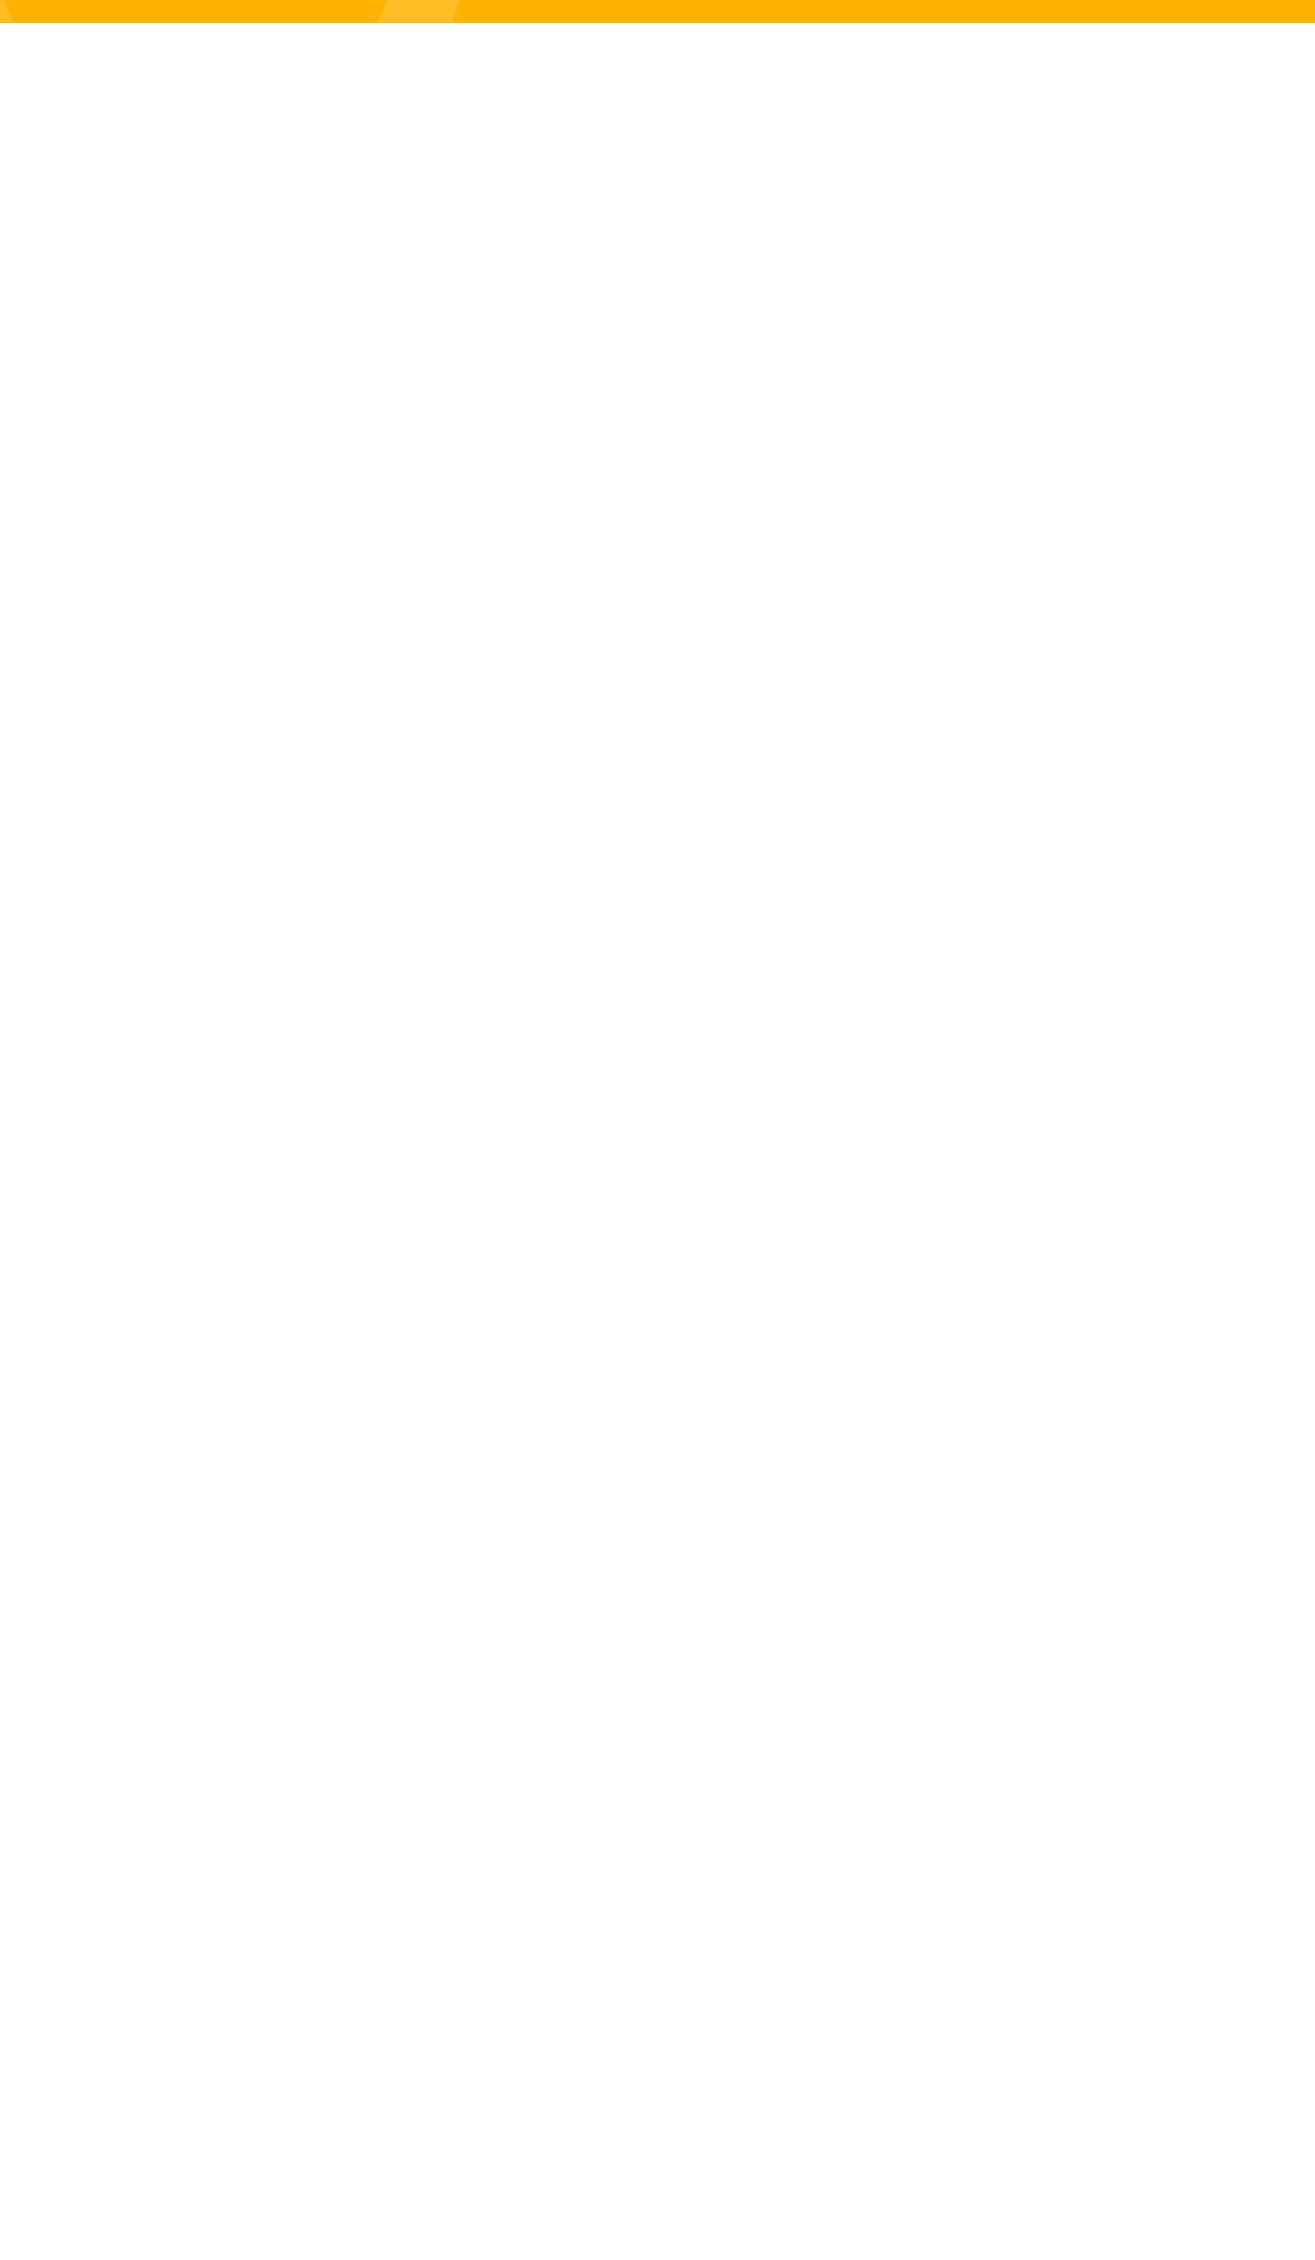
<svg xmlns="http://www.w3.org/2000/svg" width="1315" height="2260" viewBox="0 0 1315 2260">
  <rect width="100%" height="100%" fill="#fff"/>
  <path d="M0 0h1315v23H0z" fill="#ffb300"/>
  <image x="0" y="0" width="459" height="23" href="img/1.png"/>
</svg>
